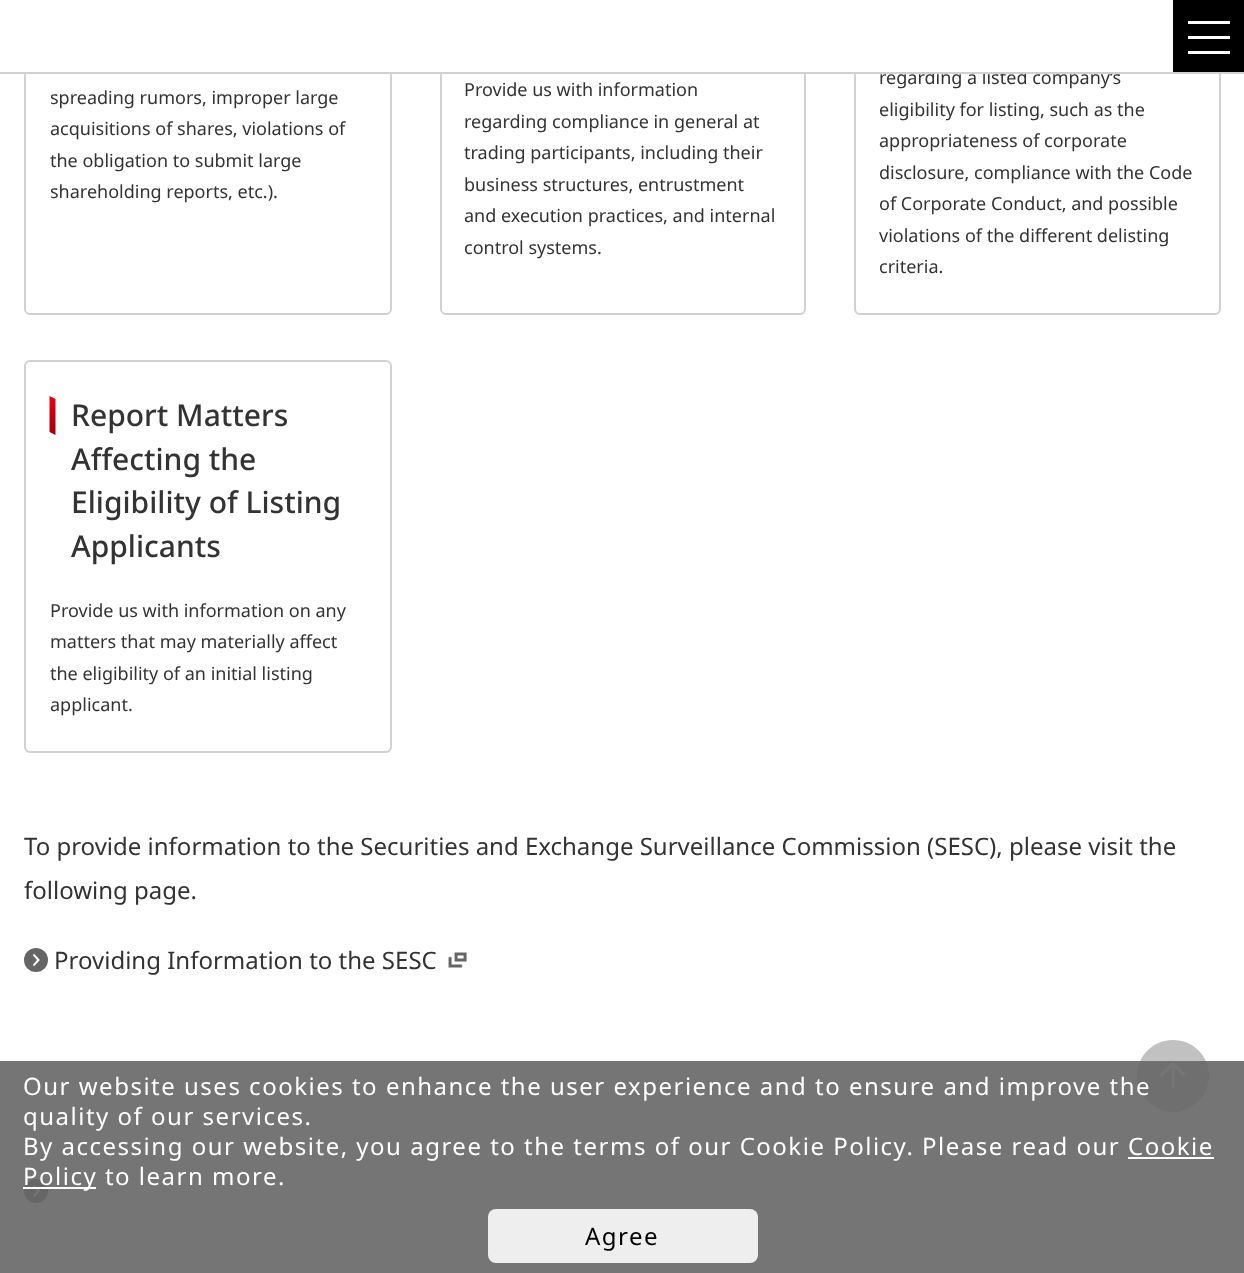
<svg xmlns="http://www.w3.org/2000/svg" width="1244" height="1273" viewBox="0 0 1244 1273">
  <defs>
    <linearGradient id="g1" gradientUnits="userSpaceOnUse" x1="53" y1="398" x2="53" y2="434"><stop offset="0" stop-color="#e60012"/><stop offset="1" stop-color="#a4000d"/></linearGradient>
  </defs>
  <rect width="100%" height="100%" fill="#fff"/>
  <rect x="855" y="-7" width="365" height="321" rx="5" fill="none" stroke="#d1d1d1" stroke-width="2"/>
  <path d="M1173 0h71v72H1173z" fill="#000"/>
  <path d="M1188 21h42v3H1188z" fill="#fff"/>
  <path d="M1188 36h42v3H1188z" fill="#fff"/>
  <path d="M1188 51h42v3H1188z" fill="#fff"/>
  <rect x="25" y="-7" width="366" height="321" rx="5" fill="none" stroke="#d1d1d1" stroke-width="2"/>
  <rect x="441" y="-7" width="364" height="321" rx="5" fill="none" stroke="#d1d1d1" stroke-width="2"/>
  <rect x="25" y="361" width="366" height="391" rx="5" fill="none" stroke="#d1d1d1" stroke-width="2"/>
  <path d="M49.5 396L55.5 399V435L49.5 432Z" fill="url(#g1)"/>
  <circle cx="36" cy="960" r="12" fill="#666"/>
  <path d="M33.5 954.5L38.5 960L33.5 965.5" fill="none" stroke="#fff" stroke-width="2"/>
  <image x="448" y="952" width="19" height="16" href="img/1.png"/>
  <circle cx="36" cy="1191" r="12" fill="#666"/>
  <path d="M33.5 1185.5L38.5 1191L33.5 1196.5" fill="none" stroke="#fff" stroke-width="2"/>
  <path d="M1173 1040C1193 1040 1209 1056 1209 1076C1209 1095 1193 1112 1173 1112C1153 1112 1137 1095 1137 1076C1137 1056 1153 1040 1173 1040Z" fill="#c1c1c1"/>
  <path d="M1185 1075.5L1173 1063.5L1161 1075.5M1173 1087.5V1063.5" fill="none" stroke="#fff" stroke-width="3"/>
  <path d="M0 1061h1244v212H0z" fill="#666666e6"/>
  <path d="M1128 1157h86v2H1128z" fill="#fff"/>
  <path d="M23 1187h73v2H23z" fill="#fff"/>
  <rect x="488" y="1209" width="270" height="54" rx="8" fill="#eee"/>
  <g font-family="Noto Sans" font-size="18" fill="#333">
    <text x="50" y="104">spreading rumors, improper large</text>
    <text x="50" y="135">acquisitions of shares, violations of</text>
    <text x="50" y="167">the obligation to submit large</text>
    <text x="50" y="198">shareholding reports, etc.).</text>
    <text x="464" y="96">Provide us with information</text>
    <text x="464" y="128">regarding compliance in general at</text>
    <text x="464" y="159">trading participants, including their</text>
    <text x="464" y="191">business structures, entrustment</text>
    <text x="464" y="222">and execution practices, and internal</text>
    <text x="464" y="254">control systems.</text>
    <text x="879" y="84">regarding a listed company‘s</text>
  </g>
  <path d="M0 72h1244v2H0z" fill="#d1d1d1"/>
  <path d="M24 0h1090v72H24z" fill="#fff"/>
  <g font-family="Noto Sans" font-size="18" fill="#333">
    <text x="879" y="116">eligibility for listing, such as the</text>
    <text x="879" y="147">appropriateness of corporate</text>
    <text x="879" y="179">disclosure, compliance with the Code</text>
    <text x="879" y="210">of Corporate Conduct, and possible</text>
    <text x="879" y="242">violations of the different delisting</text>
    <text x="879" y="273">criteria.</text>
  </g>
  <g font-family="Noto Sans" font-size="30" font-weight="500" fill="#333">
    <text x="71" y="426">Report Matters</text>
    <text x="71" y="470">Affecting the</text>
    <text x="71" y="513">Eligibility of Listing</text>
    <text x="71" y="557">Applicants</text>
  </g>
  <g font-family="Noto Sans" font-size="18" fill="#333">
    <text x="50" y="617">Provide us with information on any</text>
    <text x="50" y="648">matters that may materially affect</text>
    <text x="50" y="680">the eligibility of an initial listing</text>
    <text x="50" y="711">applicant.</text>
  </g>
  <g font-family="Noto Sans" font-size="24" fill="#333">
    <text x="24" y="855">To provide information to the Securities and Exchange Surveillance Commission (SESC), please visit the</text>
    <text x="24" y="899">following page.</text>
    <text x="54" y="969">Providing Information to the SESC</text>
  </g>
  <g font-family="Noto Sans" font-size="24" letter-spacing="1.5" fill="#fff">
    <text x="23" y="1095">Our website uses cookies to enhance the user experience and to ensure and improve the</text>
    <text x="23" y="1125">quality of our services.</text>
    <text x="23" y="1155">By accessing our website, you agree to the terms of our Cookie Policy. Please read our Cookie</text>
    <text x="23" y="1185">Policy to learn more.</text>
  </g>
  <text x="585" y="1245" font-family="Noto Sans" font-size="24" letter-spacing="1.5" fill="#000">Agree</text>
</svg>
